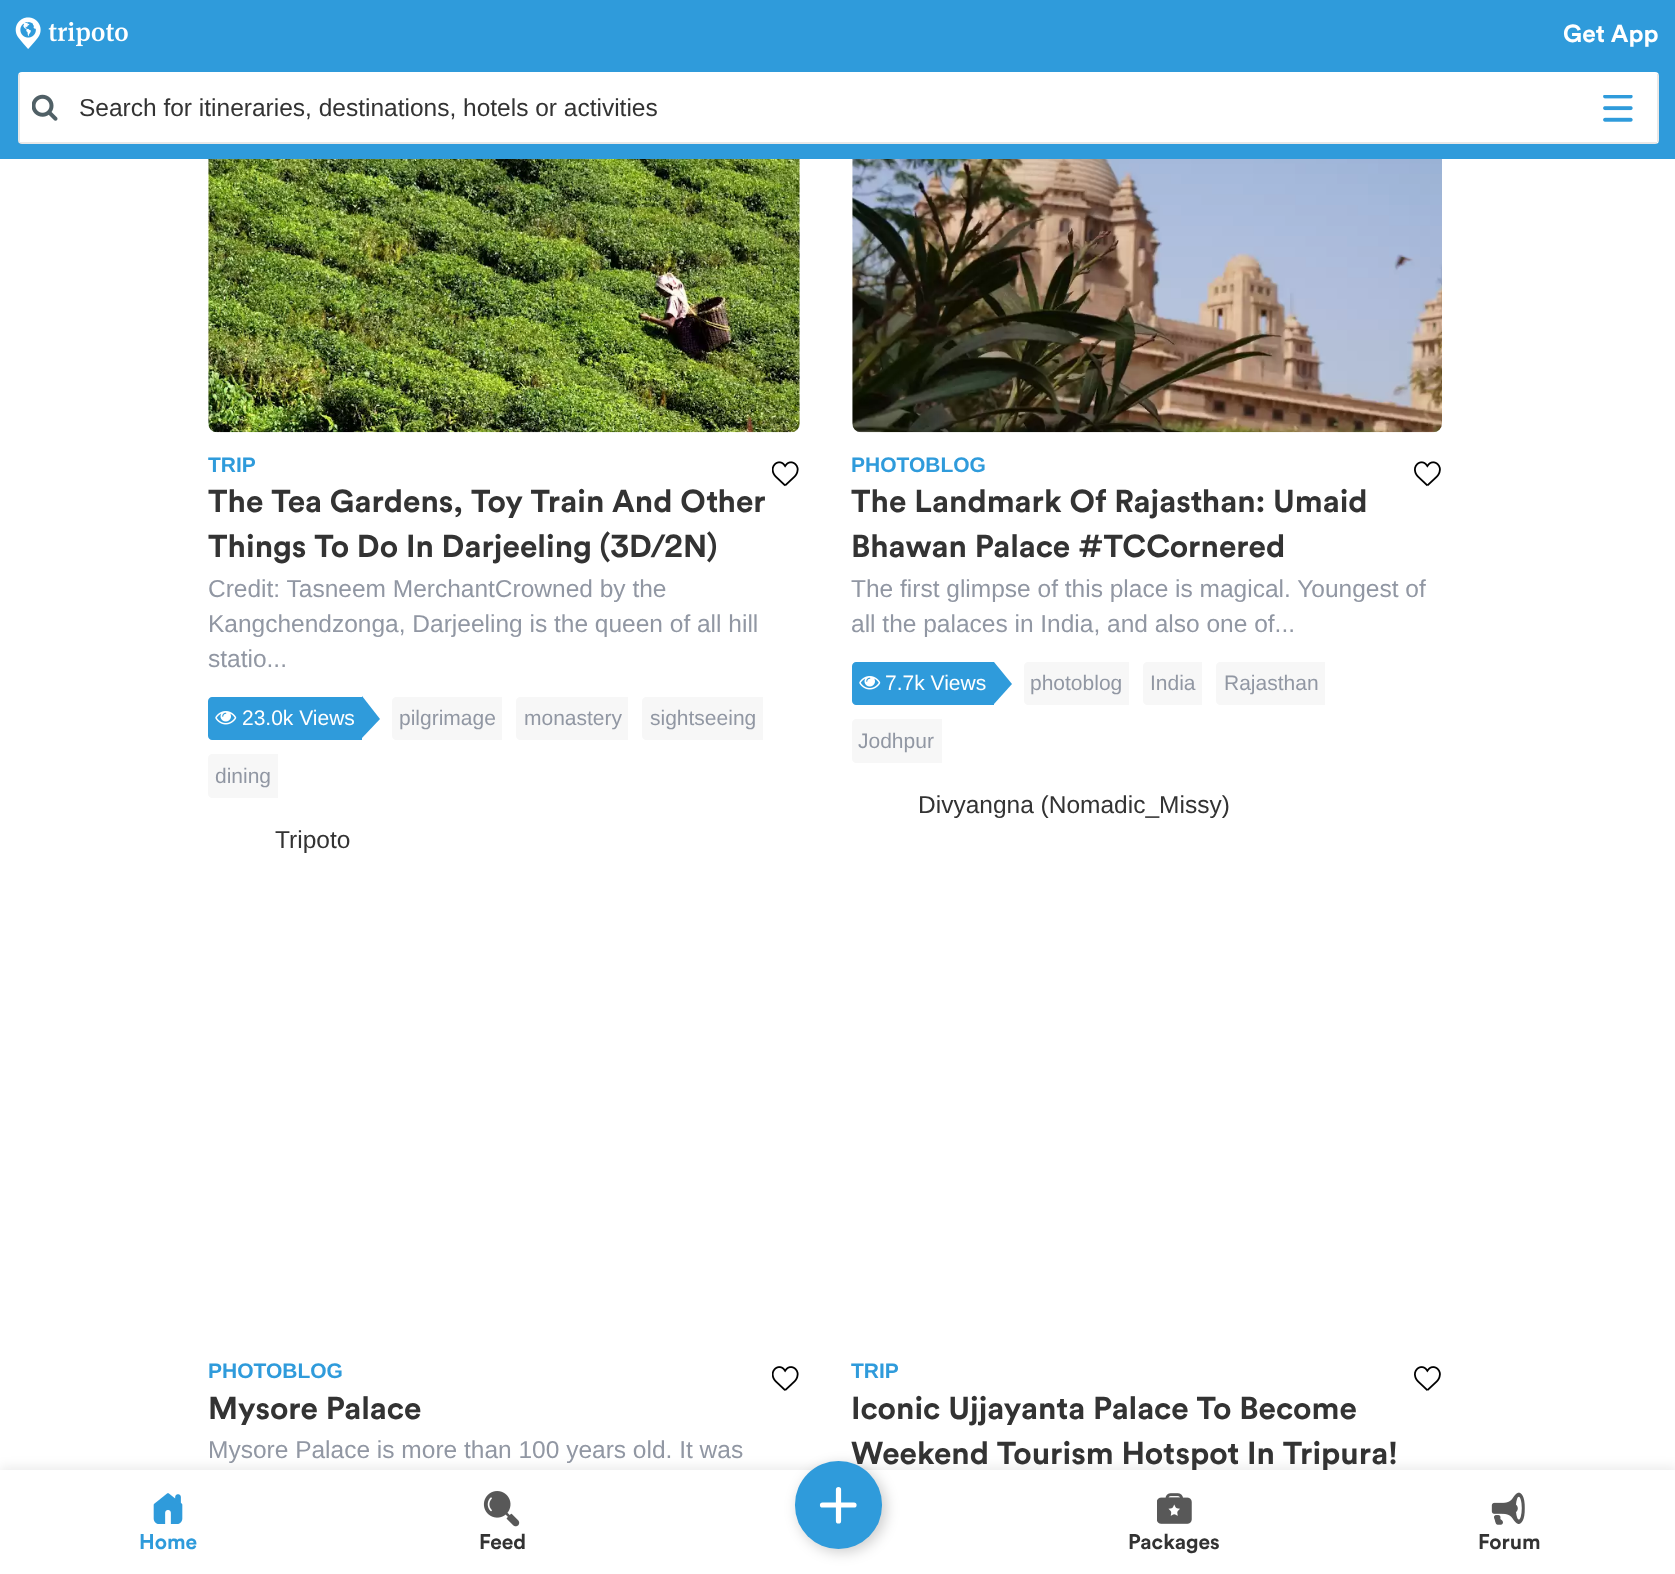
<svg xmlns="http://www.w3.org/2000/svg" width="1675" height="1574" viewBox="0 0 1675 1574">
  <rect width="100%" height="100%" fill="#fff"/>
  <path d="M0 0h1675v159H0z" fill="#2f9bdb"/>
  <image x="15" y="17" width="113" height="32" href="img/1.png"/>
  <rect x="18" y="72" width="1641" height="72" rx="4" fill="#fff"/>
  <image x="32" y="94" width="26" height="27" href="img/2.png"/>
  <path d="M1657 74h2v68H1657z" fill="#00000017"/>
  <path d="M19 142h1638v2H19z" fill="#00000017"/>
  <path d="M18 74h2v68H18z" fill="#00000017"/>
  <image x="1603" y="95" width="30" height="27" href="img/3.png"/>
  <image x="208" y="159" width="592" height="274" href="img/4.png"/>
  <image x="772" y="461" width="27" height="26" href="img/5.png"/>
  <path d="M212 697H362V740H212C210 740 208 738 208 736V701C208 699 210 697 212 697Z" fill="#2f9bdb"/>
  <image x="215" y="711" width="22" height="14" href="img/6.png"/>
  <path d="M362 738V696L380 719Z" fill="#2f9bdb"/>
  <path d="M396 697H502V740H396C394 740 392 738 392 736V701C392 699 394 697 396 697Z" fill="#f7f7f7"/>
  <path d="M520 697H628V740H520C518 740 516 738 516 736V701C516 699 518 697 520 697Z" fill="#f7f7f7"/>
  <path d="M646 697H763V740H646C644 740 642 738 642 736V701C642 699 644 697 646 697Z" fill="#f7f7f7"/>
  <path d="M212 754H278V798H212C210 798 208 796 208 794V758C208 756 210 754 212 754Z" fill="#f7f7f7"/>
  <image x="852" y="159" width="590" height="274" href="img/7.png"/>
  <image x="1414" y="461" width="27" height="26" href="img/8.png"/>
  <path d="M856 662H994V705H856C854 705 852 703 852 701V666C852 664 854 662 856 662Z" fill="#2f9bdb"/>
  <image x="859" y="676" width="22" height="14" href="img/9.png"/>
  <path d="M994 704V662L1012 684Z" fill="#2f9bdb"/>
  <path d="M1028 662H1129V705H1028C1026 705 1024 703 1024 701V666C1024 664 1026 662 1028 662Z" fill="#f7f7f7"/>
  <path d="M1147 662H1202V705H1147C1145 705 1143 703 1143 701V666C1143 664 1145 662 1147 662Z" fill="#f7f7f7"/>
  <path d="M1220 662H1325V705H1220C1218 705 1216 703 1216 701V666C1216 664 1218 662 1220 662Z" fill="#f7f7f7"/>
  <path d="M856 719H942V763H856C854 763 852 761 852 759V723C852 721 854 719 856 719Z" fill="#f7f7f7"/>
  <image x="772" y="1366" width="27" height="25" href="img/10.png"/>
  <image x="1414" y="1366" width="27" height="25" href="img/11.png"/>
  <path d="M0 1467h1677v105H0z" fill="#00000014" filter="blur(6px)"/>
  <path d="M0 1470h1675v104H0z" fill="#fff"/>
  <image x="153" y="1493" width="30" height="31" href="img/12.png"/>
  <image x="483" y="1491" width="37" height="36" href="img/13.png"/>
  <rect x="798" y="1465" width="88" height="87" rx="43.5" fill="#00000033" filter="blur(7px)"/>
  <image x="1157" y="1493" width="35" height="31" href="img/14.png"/>
  <image x="1491" y="1492" width="34" height="33" href="img/15.png"/>
  <text x="1563" y="42" font-family="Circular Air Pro" font-size="24.5" font-weight="bold" fill="#fff">Get App</text>
  <text x="79" y="116" font-family="Liberation Sans" font-size="24.5" fill="#333">Search for itineraries, destinations, hotels or activities</text>
  <text x="208" y="472" font-family="Liberation Sans" font-size="21" font-weight="bold" fill="#2f9bdb">TRIP</text>
  <g font-family="Circular Air Pro" font-size="31.5" font-weight="bold" fill="#333">
    <text x="208" y="512">The Tea Gardens, Toy Train And Other</text>
    <text x="208" y="557">Things To Do In Darjeeling (3D/2N)</text>
  </g>
  <g font-family="Liberation Sans" font-size="24.5" fill="#9197a3">
    <text x="208" y="597">Credit: Tasneem MerchantCrowned by the</text>
    <text x="208" y="632">Kangchendzonga, Darjeeling is the queen of all hill</text>
    <text x="208" y="667">statio...</text>
  </g>
  <text x="242" y="725" font-family="Liberation Sans" font-size="21" fill="#fff">23.0k Views</text>
  <g font-family="Liberation Sans" font-size="21" fill="#9197a3">
    <text x="399" y="725">pilgrimage</text>
    <text x="524" y="725">monastery</text>
    <text x="650" y="725">sightseeing</text>
    <text x="215" y="783">dining</text>
  </g>
  <text x="275" y="848" font-family="Liberation Sans" font-size="24.5" fill="#333">Tripoto</text>
  <text x="851" y="472" font-family="Liberation Sans" font-size="21" font-weight="bold" fill="#2f9bdb">PHOTOBLOG</text>
  <g font-family="Circular Air Pro" font-size="31.5" font-weight="bold" fill="#333">
    <text x="851" y="512">The Landmark Of Rajasthan: Umaid</text>
    <text x="851" y="557">Bhawan Palace #TCCornered</text>
  </g>
  <g font-family="Liberation Sans" font-size="24.5" fill="#9197a3">
    <text x="851" y="597">The first glimpse of this place is magical. Youngest of</text>
    <text x="851" y="632">all the palaces in India, and also one of...</text>
  </g>
  <text x="885" y="690" font-family="Liberation Sans" font-size="21" fill="#fff">7.7k Views</text>
  <g font-family="Liberation Sans" font-size="21" fill="#9197a3">
    <text x="1030" y="690">photoblog</text>
    <text x="1150" y="690">India</text>
    <text x="1224" y="690">Rajasthan</text>
    <text x="858" y="748">Jodhpur</text>
  </g>
  <text x="918" y="813" font-family="Liberation Sans" font-size="24.5" fill="#333">Divyangna (Nomadic_Missy)</text>
  <text x="208" y="1378" font-family="Liberation Sans" font-size="21" font-weight="bold" fill="#2f9bdb">PHOTOBLOG</text>
  <text x="208" y="1419" font-family="Circular Air Pro" font-size="31.5" font-weight="bold" fill="#333">Mysore Palace</text>
  <text x="208" y="1458" font-family="Liberation Sans" font-size="24.5" fill="#9197a3">Mysore Palace is more than 100 years old. It was</text>
  <text x="851" y="1378" font-family="Liberation Sans" font-size="21" font-weight="bold" fill="#2f9bdb">TRIP</text>
  <g font-family="Circular Air Pro" font-size="31.5" font-weight="bold" fill="#333">
    <text x="851" y="1419">Iconic Ujjayanta Palace To Become</text>
    <text x="851" y="1464">Weekend Tourism Hotspot In Tripura!</text>
  </g>
  <text x="139" y="1549" font-family="Circular Air Pro" font-size="21" font-weight="bold" fill="#2f9bdb">Home</text>
  <text x="479" y="1549" font-family="Circular Air Pro" font-size="21" font-weight="bold" fill="#333">Feed</text>
  <rect x="795" y="1461" width="87" height="88" rx="43.5" fill="#2f9bdb"/>
  <path d="M838.5 1489.5V1521M854 1505H822.5" fill="none" stroke="#fff" stroke-width="5.2" stroke-linecap="round"/>
  <g font-family="Circular Air Pro" font-size="21" font-weight="bold" fill="#333">
    <text x="1128" y="1549">Packages</text>
    <text x="1478" y="1549">Forum</text>
  </g>
</svg>
